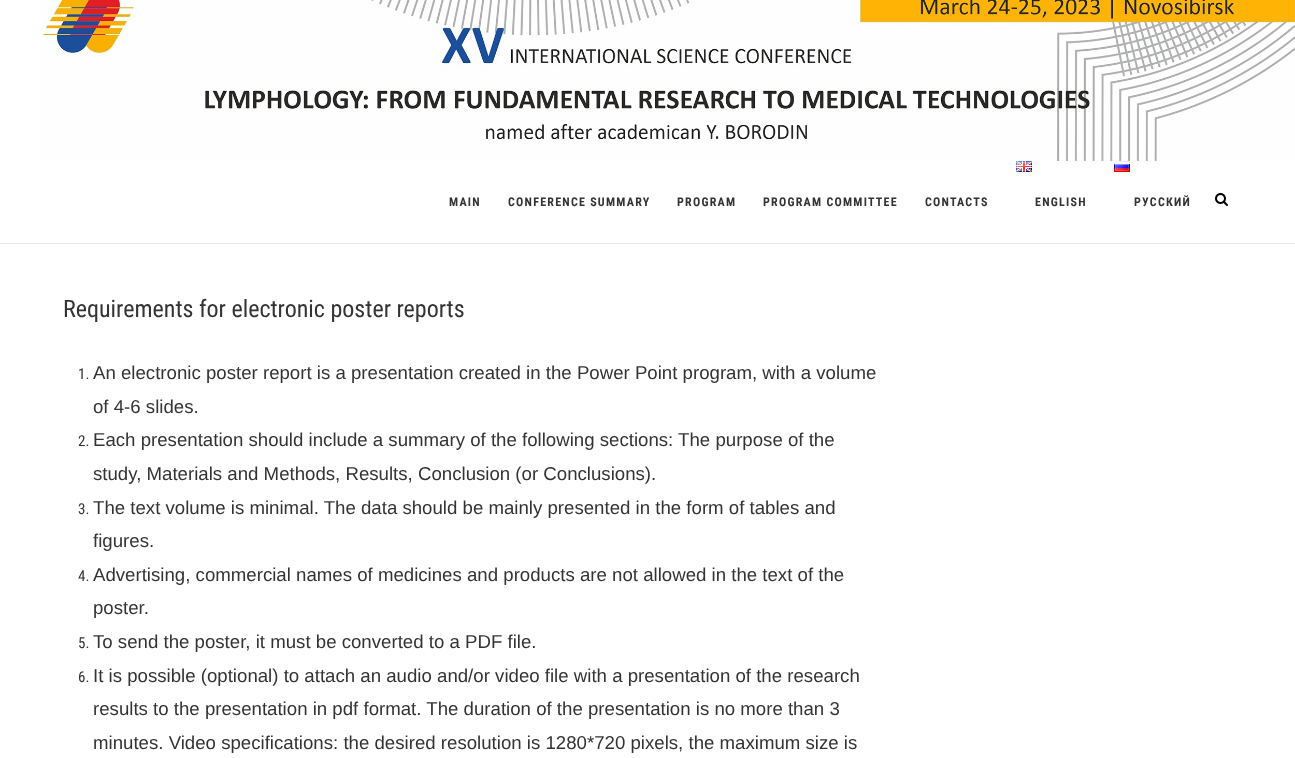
<svg xmlns="http://www.w3.org/2000/svg" width="1295" height="758" viewBox="0 0 1295 758">
  <rect width="100%" height="100%" fill="#fff"/>
  <image x="41" y="0" width="1254" height="161" href="img/1.png"/>
  <path d="M0 243h1295v1H0z" fill="#e6e6e6"/>
  <image x="1016" y="161" width="16" height="11" href="img/2.png"/>
  <image x="1114" y="161" width="16" height="11" href="img/3.png"/>
  <image x="1215" y="193" width="13" height="13" href="img/4.png"/>
  <g font-family="Roboto Condensed" font-size="12" font-weight="bold" letter-spacing="1.25" fill="#333">
    <text x="449" y="206">MAIN</text>
    <text x="508" y="206">CONFERENCE SUMMARY</text>
    <text x="677" y="206">PROGRAM</text>
    <text x="763" y="206">PROGRAM COMMITTEE</text>
    <text x="925" y="206">CONTACTS</text>
    <text x="1035" y="206">ENGLISH</text>
    <text x="1134" y="206">РУССКИЙ</text>
  </g>
  <text x="63" y="317" font-family="Roboto Condensed" font-size="24" fill="#333">Requirements for electronic poster reports</text>
  <text x="78" y="379" font-family="Roboto Condensed" font-size="15" fill="#333">1.</text>
  <g font-family="Liberation Sans" font-size="18.65" fill="#333">
    <text x="93" y="379">An electronic poster report is a presentation created in the Power Point program, with a volume</text>
    <text x="93" y="413">of 4-6 slides.</text>
  </g>
  <text x="78" y="446" font-family="Roboto Condensed" font-size="15" fill="#333">2.</text>
  <g font-family="Liberation Sans" font-size="18.65" fill="#333">
    <text x="93" y="446">Each presentation should include a summary of the following sections: The purpose of the</text>
    <text x="93" y="480">study, Materials and Methods, Results, Conclusion (or Conclusions).</text>
  </g>
  <text x="78" y="514" font-family="Roboto Condensed" font-size="15" fill="#333">3.</text>
  <g font-family="Liberation Sans" font-size="18.65" fill="#333">
    <text x="93" y="514">The text volume is minimal. The data should be mainly presented in the form of tables and</text>
    <text x="93" y="547">figures.</text>
  </g>
  <text x="78" y="581" font-family="Roboto Condensed" font-size="15" fill="#333">4.</text>
  <g font-family="Liberation Sans" font-size="18.65" fill="#333">
    <text x="93" y="581">Advertising, commercial names of medicines and products are not allowed in the text of the</text>
    <text x="93" y="614">poster.</text>
  </g>
  <text x="78" y="648" font-family="Roboto Condensed" font-size="15" fill="#333">5.</text>
  <text x="93" y="648" font-family="Liberation Sans" font-size="18.65" fill="#333">To send the poster, it must be converted to a PDF file.</text>
  <text x="78" y="682" font-family="Roboto Condensed" font-size="15" fill="#333">6.</text>
  <g font-family="Liberation Sans" font-size="18.65" fill="#333">
    <text x="93" y="682">It is possible (optional) to attach an audio and/or video file with a presentation of the research</text>
    <text x="93" y="715">results to the presentation in pdf format. The duration of the presentation is no more than 3</text>
    <text x="93" y="749">minutes. Video specifications: the desired resolution is 1280*720 pixels, the maximum size is</text>
  </g>
</svg>
